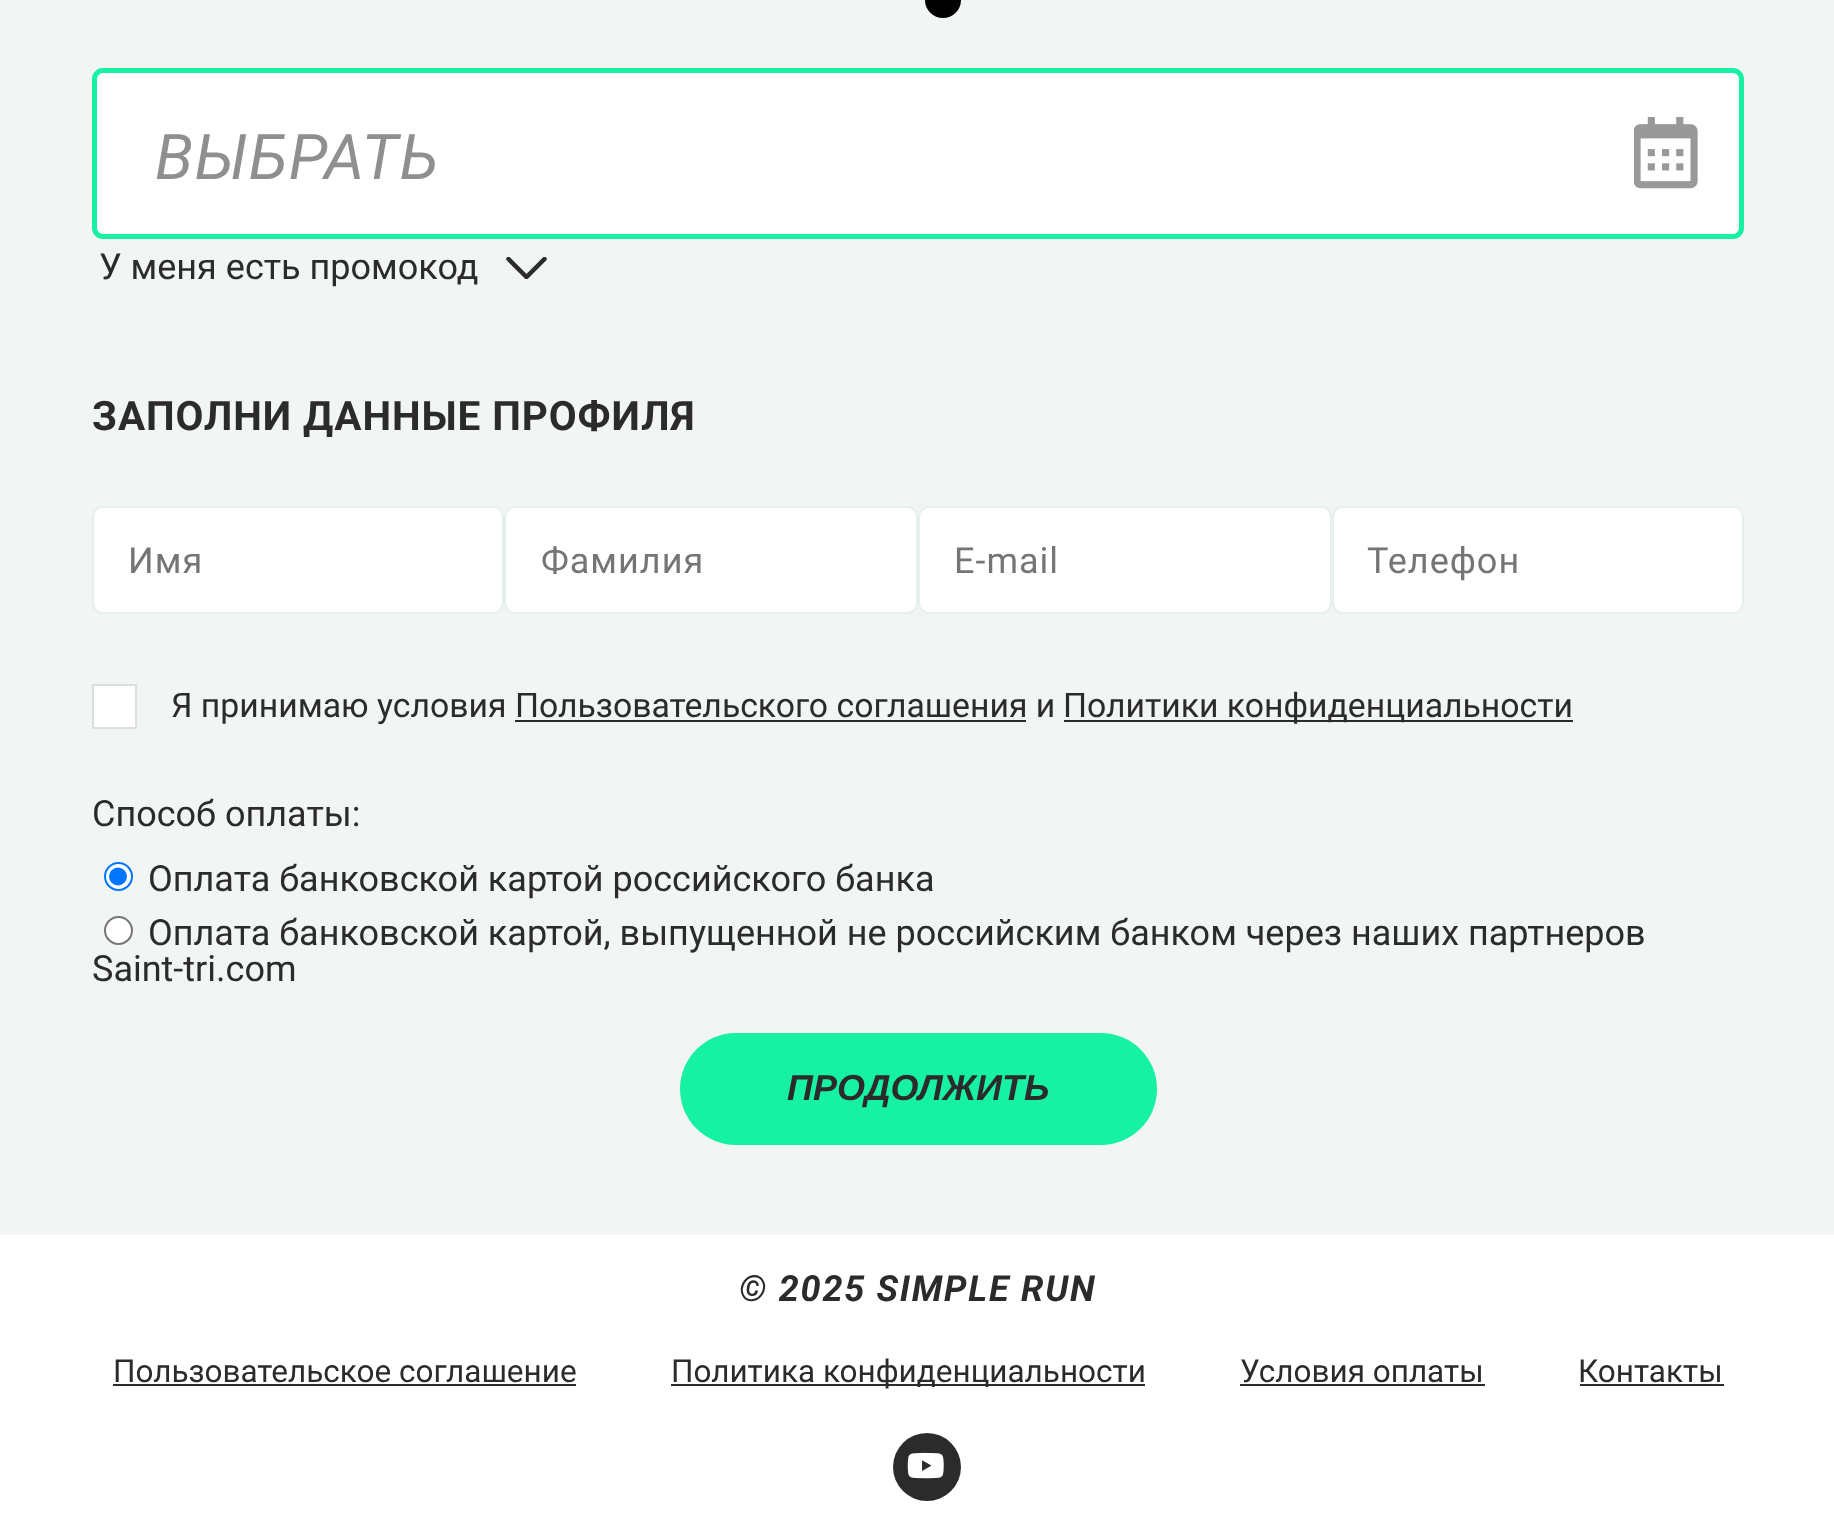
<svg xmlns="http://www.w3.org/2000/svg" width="1834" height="1536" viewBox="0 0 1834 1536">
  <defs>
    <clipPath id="clip1"><path d="M506 257h41v22H506z"/></clipPath>
  </defs>
  <rect width="100%" height="100%" fill="#f1f5f4"/>
  <circle cx="943" cy="0" r="18" fill="#000"/>
  <rect x="94.5" y="70.5" width="1647" height="166" rx="8.5" fill="#fff" stroke="#17f1a3" stroke-width="5"/>
  <image x="1634" y="117" width="64" height="72" href="img/1.png"/>
  <g clip-path="url(#clip1)">
    <path d="M508.5 259L526.5 277L544.5 259" fill="none" stroke="#2b2b2b" stroke-width="4.5" stroke-linecap="round"/>
  </g>
  <rect x="93" y="507" width="410" height="106" rx="10" fill="#fff" stroke="#e7f0ed" stroke-width="2"/>
  <rect x="505" y="507" width="412" height="106" rx="10" fill="#fff" stroke="#e7f0ed" stroke-width="2"/>
  <rect x="919" y="507" width="412" height="106" rx="10" fill="#fff" stroke="#e7f0ed" stroke-width="2"/>
  <rect x="1333" y="507" width="410" height="106" rx="10" fill="#fff" stroke="#e7f0ed" stroke-width="2"/>
  <path d="M93 685h43v43H93z" fill="#fff" stroke="#dedede" stroke-width="2"/>
  <path d="M1064 720h509v2H1064z" fill="#2b2b2b"/>
  <path d="M515 720h511v2H515z" fill="#2b2b2b"/>
  <circle cx="118.5" cy="876.5" r="13.5" fill="#fff" stroke="#0075ff" stroke-width="2"/>
  <circle cx="118" cy="876.5" r="9" fill="#0075ff"/>
  <circle cx="118.5" cy="930.5" r="13.5" fill="#fff" stroke="#767676" stroke-width="2"/>
  <rect x="680" y="1033" width="477" height="112" rx="56" fill="#17f1a3"/>
  <path d="M0 1235h1834v301H0z" fill="#fff"/>
  <path d="M113 1384h463v2H113z" fill="#2b2b2b"/>
  <path d="M671 1384h474v2H671z" fill="#2b2b2b"/>
  <path d="M1240 1384h245v2H1240z" fill="#2b2b2b"/>
  <path d="M1580 1384h144v2H1580z" fill="#2b2b2b"/>
  <circle cx="927" cy="1467" r="34" fill="#2b2b2b"/>
  <image x="907" y="1452" width="37" height="27" href="img/2.png"/>
  <text x="155" y="179" font-family="Roboto" font-size="63" font-style="italic" letter-spacing="1.25" fill="#8f8f8f">ВЫБРАТЬ</text>
  <text x="99" y="279" font-family="Roboto" font-size="36" fill="#2b2b2b">У меня есть промокод</text>
  <text x="92" y="430" font-family="Roboto" font-size="40.5" font-weight="bold" letter-spacing="0.9" fill="#2b2b2b">ЗАПОЛНИ ДАННЫЕ ПРОФИЛЯ</text>
  <g font-family="Roboto" font-size="36" letter-spacing="1" fill="#757575">
    <text x="128" y="573">Имя</text>
    <text x="541" y="573">Фамилия</text>
    <text x="954" y="573">E-mail</text>
    <text x="1367" y="573">Телефон</text>
  </g>
  <g font-family="Roboto" font-size="33.75" fill="#2b2b2b">
    <text x="171" y="717">Я принимаю условия Пользовательского соглашения и</text>
    <text x="1063" y="717">Политики конфиденциальности</text>
  </g>
  <g font-family="Roboto" font-size="36" fill="#2b2b2b">
    <text x="92" y="826">Способ оплаты:</text>
    <text x="148" y="891">Оплата банковской картой российского банка</text>
    <text x="148" y="945">Оплата банковской картой, выпущенной не российским банком через наших партнеров</text>
    <text x="92" y="981">Saint-tri.com</text>
  </g>
  <text x="787" y="1100" font-family="Liberation Sans" font-size="36" font-weight="bold" font-style="italic" fill="#2b2b2b">ПРОДОЛЖИТЬ</text>
  <text x="739" y="1301" font-family="Roboto" font-size="36" font-weight="bold" font-style="italic" letter-spacing="1.75" fill="#2b2b2b">© 2025 SIMPLE RUN</text>
  <g font-family="Roboto" font-size="31.5" fill="#2b2b2b">
    <text x="113" y="1382">Пользовательское соглашение</text>
    <text x="671" y="1382">Политика конфиденциальности</text>
    <text x="1240" y="1382">Условия оплаты</text>
    <text x="1578" y="1382">Контакты</text>
  </g>
</svg>
